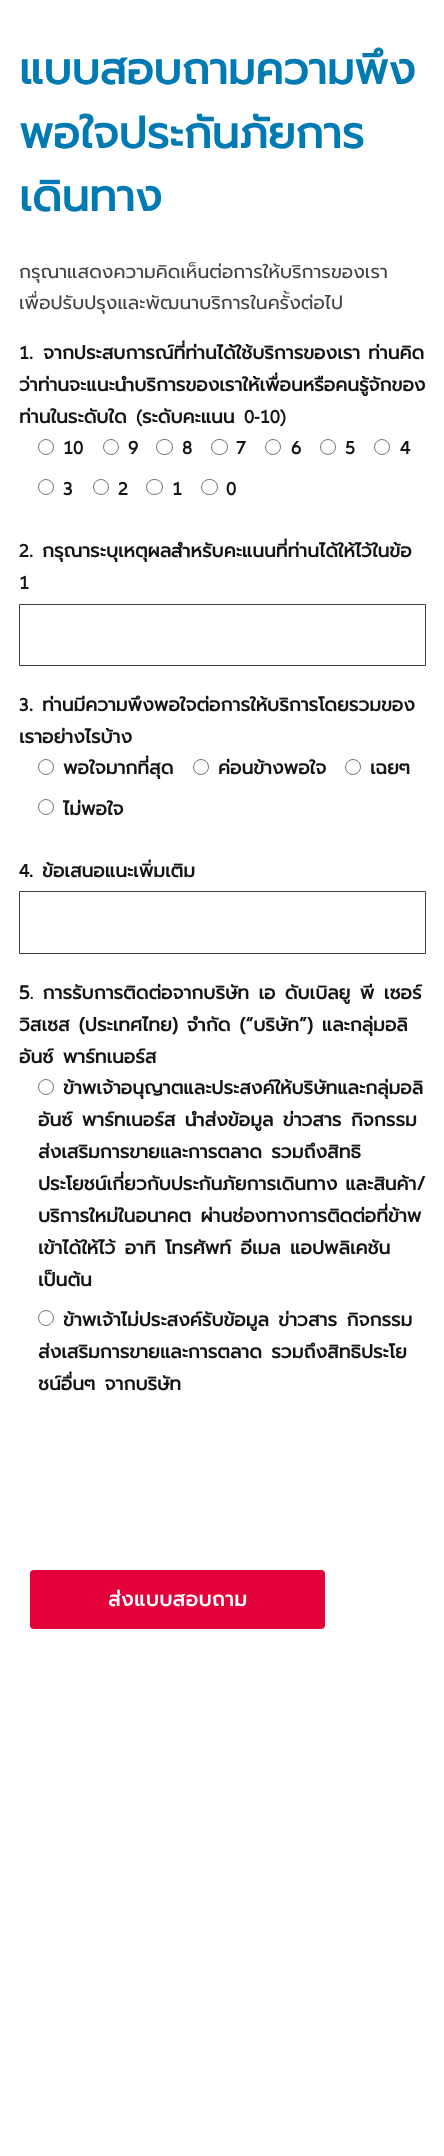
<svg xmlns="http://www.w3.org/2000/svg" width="444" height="2156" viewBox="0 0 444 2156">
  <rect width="100%" height="100%" fill="#fff"/>
  <circle cx="46" cy="447" r="7.5" fill="none" stroke="#767676"/>
  <circle cx="111" cy="447" r="7.5" fill="none" stroke="#767676"/>
  <rect x="156.5" y="439.5" width="16" height="15" rx="7.5" fill="none" stroke="#767676"/>
  <rect x="211.5" y="439.5" width="16" height="15" rx="7.5" fill="none" stroke="#767676"/>
  <circle cx="273" cy="447" r="7.5" fill="none" stroke="#767676"/>
  <circle cx="328" cy="447" r="7.5" fill="none" stroke="#767676"/>
  <circle cx="382" cy="447" r="7.5" fill="none" stroke="#767676"/>
  <circle cx="46" cy="487" r="7.5" fill="none" stroke="#767676"/>
  <circle cx="101" cy="487" r="7.5" fill="none" stroke="#767676"/>
  <rect x="146.5" y="479.5" width="16" height="15" rx="7.5" fill="none" stroke="#767676"/>
  <rect x="201.5" y="479.5" width="16" height="15" rx="7.5" fill="none" stroke="#767676"/>
  <path d="M19.5 604.5h406v61H19.5z" fill="none" stroke="#414141"/>
  <circle cx="46" cy="767" r="7.5" fill="none" stroke="#767676"/>
  <circle cx="201" cy="767" r="7.5" fill="none" stroke="#767676"/>
  <circle cx="353" cy="767" r="7.5" fill="none" stroke="#767676"/>
  <circle cx="46" cy="807" r="7.5" fill="none" stroke="#767676"/>
  <path d="M19.5 891.5h406v62H19.5z" fill="none" stroke="#414141"/>
  <circle cx="46" cy="1087" r="7.5" fill="none" stroke="#767676"/>
  <circle cx="46" cy="1318" r="7.5" fill="none" stroke="#767676"/>
  <rect x="31.5" y="1571.5" width="292" height="56" rx="2.5" fill="#e4003a" stroke="#e4003a" stroke-width="3"/>
  <g font-family="Prompt" font-size="43.75" font-weight="bold" fill="#007ab3">
    <text x="19" y="84">แบบสอบถามความพึง</text>
    <text x="19" y="148">พอใจประกันภัยการ</text>
    <text x="19" y="211">เดินทาง</text>
  </g>
  <g font-family="Prompt" font-size="18.75" fill="#414141">
    <text x="19" y="278">กรุณาแสดงความคิดเห็นต่อการให้บริการของเรา</text>
    <text x="19" y="309">เพื่อปรับปรุงและพัฒนาบริการในครั้งต่อไป</text>
  </g>
  <text x="19" y="359" font-family="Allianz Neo" font-size="18.75" font-weight="bold" fill="#141414">1.</text>
  <g font-family="Prompt" font-size="18.75" font-weight="bold" fill="#141414">
    <text x="43" y="359" word-spacing="1">จากประสบการณ์ที่ท่านได้ใช้บริการของเรา ท่านคิด</text>
    <text x="19" y="391">ว่าท่านจะแนะนำบริการของเราให้เพื่อนหรือคนรู้จักของ</text>
    <text x="19" y="423">ท่านในระดับใด</text>
  </g>
  <text x="136" y="423" font-family="Allianz Neo" font-size="18.75" font-weight="bold" fill="#141414">(</text>
  <text x="142" y="423" font-family="Prompt" font-size="18.75" font-weight="bold" fill="#141414">ระดับคะแนน</text>
  <g font-family="Allianz Neo" font-size="18.75" font-weight="bold" fill="#141414">
    <text x="244" y="423">0-10)</text>
    <text x="63" y="454">10</text>
    <text x="128" y="454">9</text>
    <text x="182" y="454">8</text>
    <text x="236" y="454">7</text>
    <text x="291" y="454">6</text>
    <text x="345" y="454">5</text>
    <text x="400" y="454">4</text>
    <text x="63" y="495">3</text>
    <text x="118" y="495">2</text>
    <text x="172" y="495">1</text>
    <text x="226" y="495">0</text>
    <text x="19" y="557">2.</text>
  </g>
  <text x="42" y="557" font-family="Prompt" font-size="18.75" font-weight="bold" fill="#141414">กรุณาระบุเหตุผลสำหรับคะแนนที่ท่านได้ให้ไว้ในข้อ</text>
  <g font-family="Allianz Neo" font-size="18.75" font-weight="bold" fill="#141414">
    <text x="19" y="589">1</text>
    <text x="19" y="711">3.</text>
  </g>
  <g font-family="Prompt" font-size="18.75" font-weight="bold" fill="#141414">
    <text x="42" y="711">ท่านมีความพึงพอใจต่อการให้บริการโดยรวมของ</text>
    <text x="19" y="743">เราอย่างไรบ้าง</text>
    <text x="63" y="774">พอใจมากที่สุด</text>
    <text x="218" y="774">ค่อนข้างพอใจ</text>
    <text x="370" y="774">เฉยๆ</text>
    <text x="63" y="815">ไม่พอใจ</text>
  </g>
  <text x="19" y="877" font-family="Allianz Neo" font-size="18.75" font-weight="bold" fill="#141414">4.</text>
  <g font-family="Prompt" font-size="18.75" font-weight="bold" fill="#141414">
    <text x="42" y="877">ข้อเสนอแนะเพิ่มเติม</text>
    <text x="19" y="999" word-spacing="2.5">5. การรับการติดต่อจากบริษัท เอ ดับเบิลยู พี เซอร์</text>
    <text x="19" y="1031" word-spacing="2">วิสเซส (ประเทศไทย) จำกัด (“บริษัท”) และกลุ่มอลิ</text>
    <text x="19" y="1063" word-spacing="2.5">อันซ์ พาร์ทเนอร์ส</text>
    <text x="63" y="1094">ข้าพเจ้าอนุญาตและประสงค์ให้บริษัทและกลุ่มอลิ</text>
    <text x="38" y="1126" word-spacing="2.5">อันซ์ พาร์ทเนอร์ส นำส่งข้อมูล ข่าวสาร กิจกรรม</text>
    <text x="38" y="1158" word-spacing="2.5">ส่งเสริมการขายและการตลาด รวมถึงสิทธิ</text>
    <text x="38" y="1190" word-spacing="1">ประโยชน์เกี่ยวกับประกันภัยการเดินทาง และสินค้า/</text>
    <text x="38" y="1222" word-spacing="2.5">บริการใหม่ในอนาคต ผ่านช่องทางการติดต่อที่ข้าพ</text>
    <text x="38" y="1254" word-spacing="2.5">เข้าได้ให้ไว้ อาทิ โทรศัพท์ อีเมล แอปพลิเคชัน</text>
    <text x="38" y="1286">เป็นต้น</text>
    <text x="63" y="1326" word-spacing="2.5">ข้าพเจ้าไม่ประสงค์รับข้อมูล ข่าวสาร กิจกรรม</text>
    <text x="38" y="1358" word-spacing="2.5">ส่งเสริมการขายและการตลาด รวมถึงสิทธิประโย</text>
    <text x="38" y="1390" word-spacing="2.5">ชน์อื่นๆ จากบริษัท</text>
  </g>
  <text x="108" y="1606" font-family="Prompt" font-size="20" font-weight="bold" letter-spacing="0.6" fill="#fff">ส่งแบบสอบถาม</text>
</svg>
